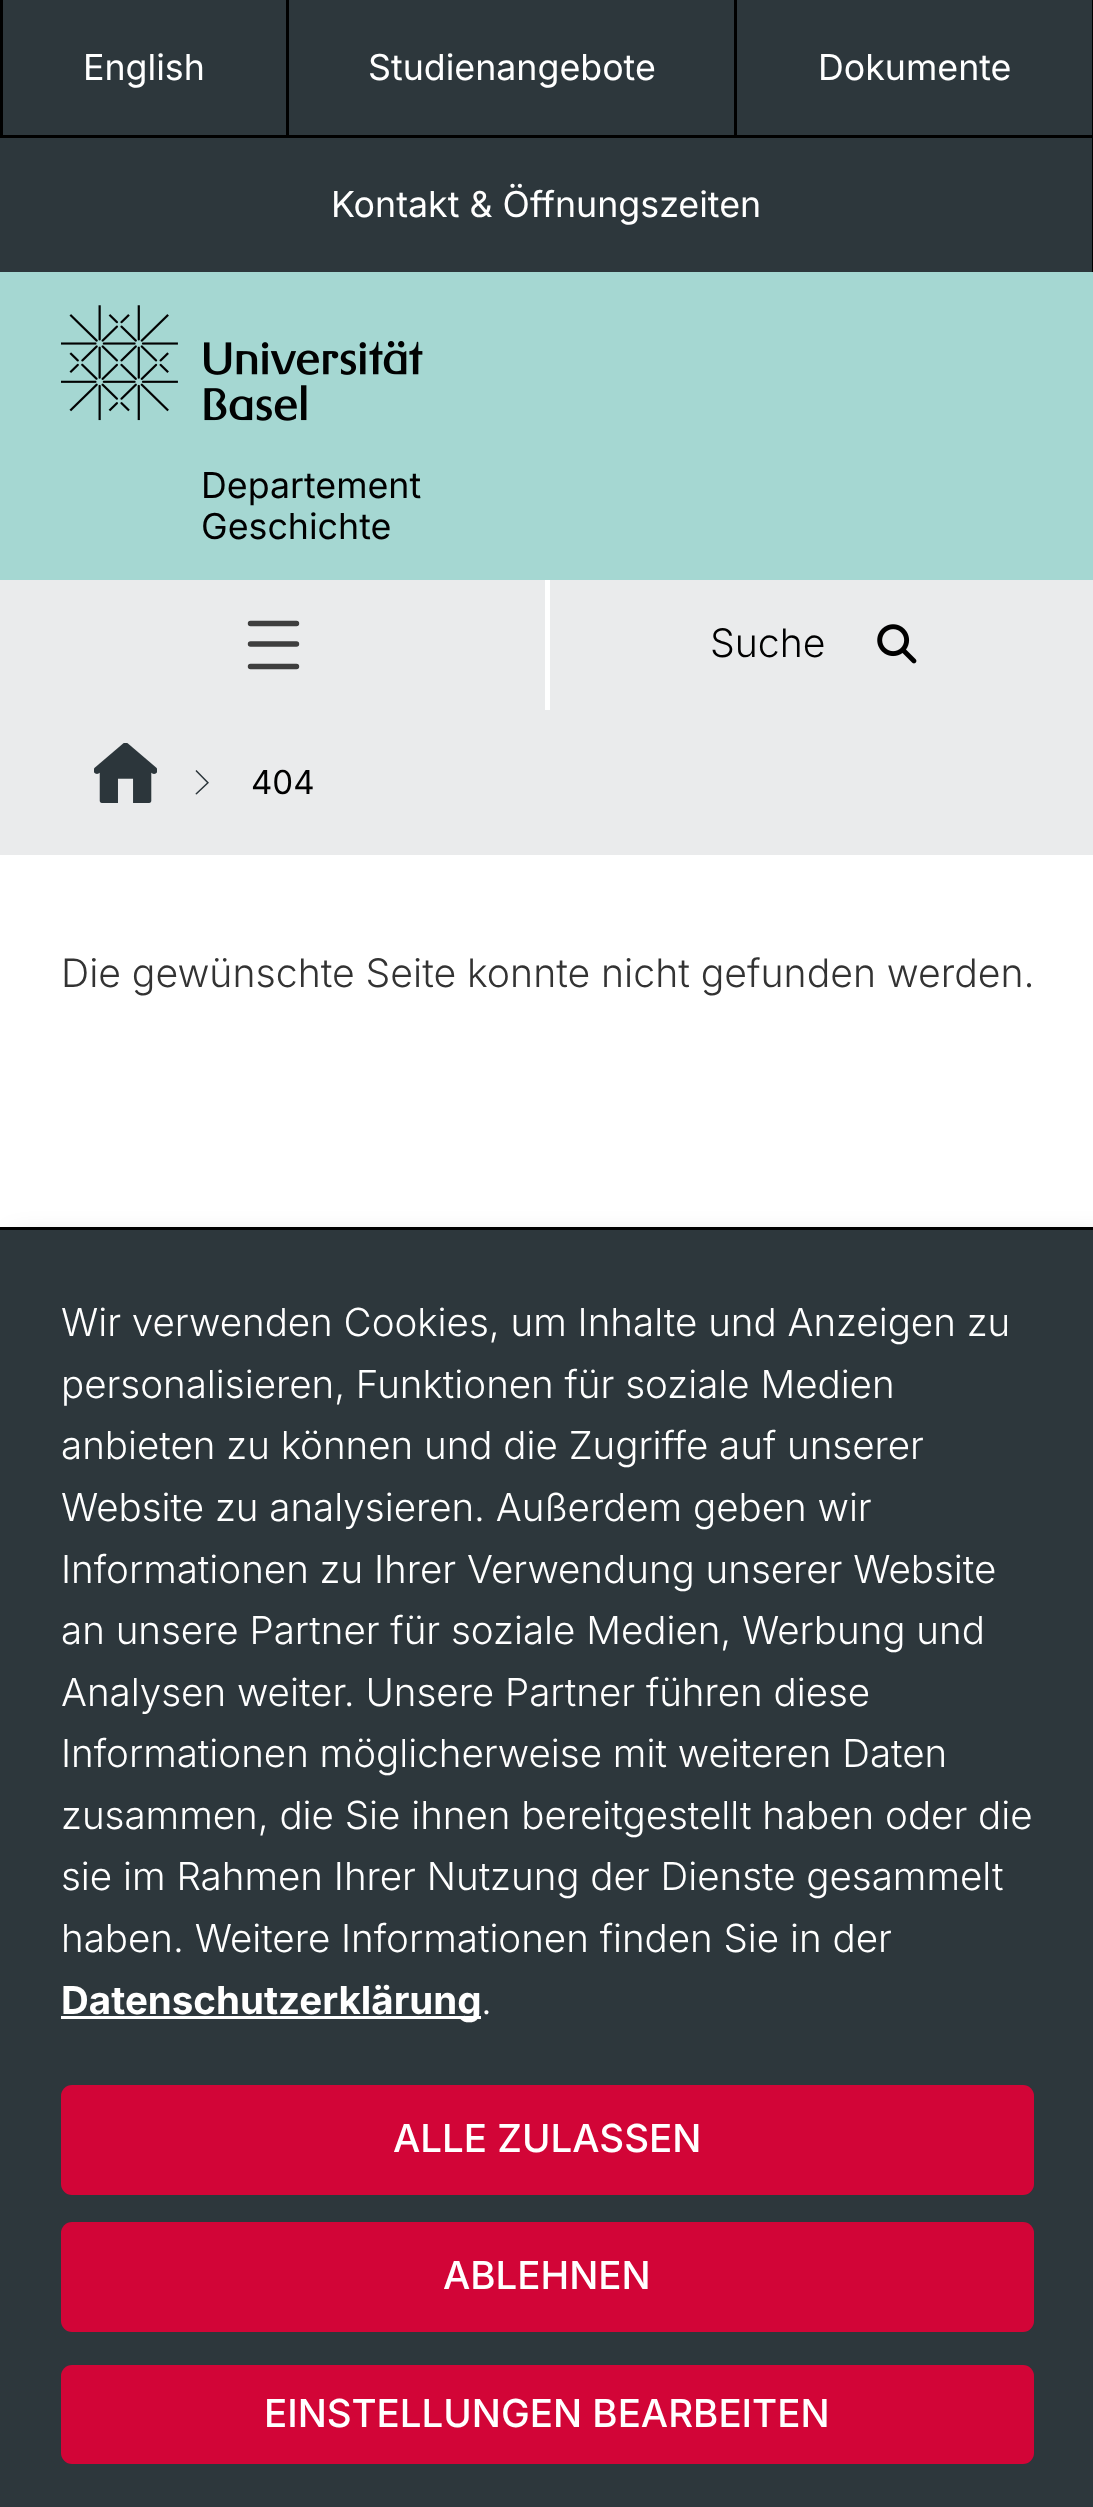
<svg xmlns="http://www.w3.org/2000/svg" width="1093" height="2507" viewBox="0 0 1093 2507">
  <rect width="100%" height="100%" fill="#fff"/>
  <path d="M0 0h1092v272H0z" fill="#2d373c"/>
  <path d="M286 0h3v135H286z" fill="#000"/>
  <path d="M0 0h3v135H0z" fill="#000"/>
  <path d="M734 0h3v135H734z" fill="#000"/>
  <path d="M1092 0h1v135H1092z" fill="#000"/>
  <path d="M0 135h1093v3H0z" fill="#000"/>
  <path d="M1092 135h1v137H1092z" fill="#000"/>
  <path d="M0 272h1093v308H0z" fill="#a5d7d2"/>
  <image x="61" y="305" width="362" height="116" href="img/1.png"/>
  <path d="M0 580h545v130H0z" fill="#eaebec"/>
  <path d="M250.5 623.5H296.5M250.5 644H296.5M250.5 666.5H296.5" fill="none" stroke="#3e3e3e" stroke-width="5.4" stroke-linecap="round"/>
  <path d="M550 580h543v130H550z" fill="#eaebec"/>
  <image x="877" y="624" width="40" height="40" href="img/2.png"/>
  <path d="M0 710h1093v145H0z" fill="#eaebec"/>
  <image x="94" y="743" width="63" height="60" href="img/3.png"/>
  <image x="195" y="770" width="14" height="25" href="img/4.png"/>
  <path d="M14 1240h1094v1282H14z" fill="#00000030" filter="blur(14px)"/>
  <path d="M0 1230h1093v1277H0z" fill="#2d373c"/>
  <path d="M0 1227h1093v3H0z" fill="#000"/>
  <path d="M61 2016h420v3H61z" fill="#fff"/>
  <rect x="61" y="2085" width="973" height="110" rx="11" fill="#d20537"/>
  <rect x="61" y="2222" width="973" height="110" rx="11" fill="#d20537"/>
  <rect x="61" y="2365" width="973" height="99" rx="11" fill="#d20537"/>
  <g font-family="Inter" font-size="35.75" fill="#fff">
    <text x="83" y="80">English</text>
    <text x="368" y="80">Studienangebote</text>
    <text x="818" y="80">Dokumente</text>
    <text x="331" y="217">Kontakt &amp; Öffnungszeiten</text>
  </g>
  <g font-family="Inter" font-size="35.75" fill="#000">
    <text x="201" y="498">Departement</text>
    <text x="201" y="539">Geschichte</text>
  </g>
  <text x="710" y="657" font-family="Inter" font-size="39.2" font-weight="300" fill="#000">Suche</text>
  <text x="251" y="794" font-family="Inter" font-size="33" fill="#000">404</text>
  <text x="61" y="987" word-spacing="-0.25" font-family="Inter" font-size="39.2" font-weight="300" fill="#333">Die gewünschte Seite konnte nicht gefunden werden.</text>
  <g font-family="Inter" font-size="38.5" font-weight="300" fill="#fff">
    <text x="61" y="1336">Wir verwenden Cookies, um Inhalte und Anzeigen zu</text>
    <text x="61" y="1398">personalisieren, Funktionen für soziale Medien</text>
    <text x="61" y="1459">anbieten zu können und die Zugriffe auf unserer</text>
    <text x="61" y="1521">Website zu analysieren. Außerdem geben wir</text>
    <text x="61" y="1583">Informationen zu Ihrer Verwendung unserer Website</text>
    <text x="61" y="1644">an unsere Partner für soziale Medien, Werbung und</text>
    <text x="61" y="1706">Analysen weiter. Unsere Partner führen diese</text>
    <text x="61" y="1767">Informationen möglicherweise mit weiteren Daten</text>
    <text x="61" y="1829">zusammen, die Sie ihnen bereitgestellt haben oder die</text>
    <text x="61" y="1890">sie im Rahmen Ihrer Nutzung der Dienste gesammelt</text>
    <text x="61" y="1952">haben. Weitere Informationen finden Sie in der</text>
  </g>
  <text x="61" y="2014" font-family="Inter" font-size="38.5" font-weight="bold" fill="#fff">Datenschutzerklärung</text>
  <text x="481" y="2014" font-family="Inter" font-size="38.5" font-weight="300" fill="#fff">.</text>
  <g font-family="Inter" font-size="38.5" font-weight="500" fill="#fff">
    <text x="393" y="2152">ALLE ZULASSEN</text>
    <text x="443" y="2289">ABLEHNEN</text>
    <text x="264" y="2427">EINSTELLUNGEN BEARBEITEN</text>
  </g>
</svg>
